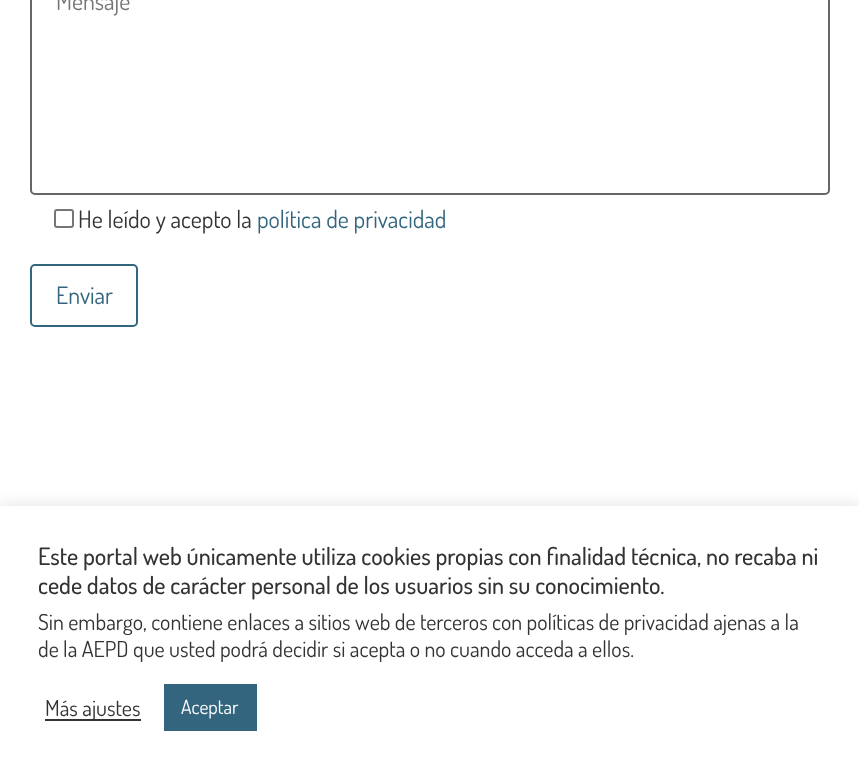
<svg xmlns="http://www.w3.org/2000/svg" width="859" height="775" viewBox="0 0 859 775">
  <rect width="100%" height="100%" fill="#fff"/>
  <rect x="31" y="-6" width="798" height="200" rx="4" fill="none" stroke="#666" stroke-width="2"/>
  <rect x="55" y="210" width="18" height="17" rx="2" fill="none" stroke="#767676" stroke-width="2"/>
  <rect x="31" y="265" width="106" height="61" rx="4" fill="none" stroke="#34657f" stroke-width="2"/>
  <path d="M0 504h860v270H0z" fill="#acabab4d" filter="blur(7.5px)"/>
  <path d="M0 506h859v269H0z" fill="#fff"/>
  <path d="M45 719h96v2H45z" fill="#333"/>
  <path d="M164 684h93v47H164z" fill="#34657f"/>
  <text x="56" y="10" font-family="Dosis" font-size="24" fill="#757575">Mensaje</text>
  <text x="78" y="228" font-family="Dosis" font-size="24" fill="#333">He leído y acepto la</text>
  <g font-family="Dosis" font-size="24" fill="#34657f">
    <text x="257" y="228">política de privacidad</text>
    <text x="56" y="304">Enviar</text>
  </g>
  <g font-family="Dosis" font-size="24" font-weight="500" fill="#333">
    <text x="38" y="565">Este portal web únicamente utiliza cookies propias con finalidad técnica, no recaba ni</text>
    <text x="38" y="594">cede datos de carácter personal de los usuarios sin su conocimiento.</text>
  </g>
  <g font-family="Dosis" font-size="22" fill="#333">
    <text x="38" y="630">Sin embargo, contiene enlaces a sitios web de terceros con políticas de privacidad ajenas a la</text>
    <text x="38" y="657">de la AEPD que usted podrá decidir si acepta o no cuando acceda a ellos.</text>
    <text x="45" y="716">Más ajustes</text>
  </g>
  <text x="181" y="714" font-family="Dosis" font-size="19.5" fill="#fff">Aceptar</text>
</svg>
